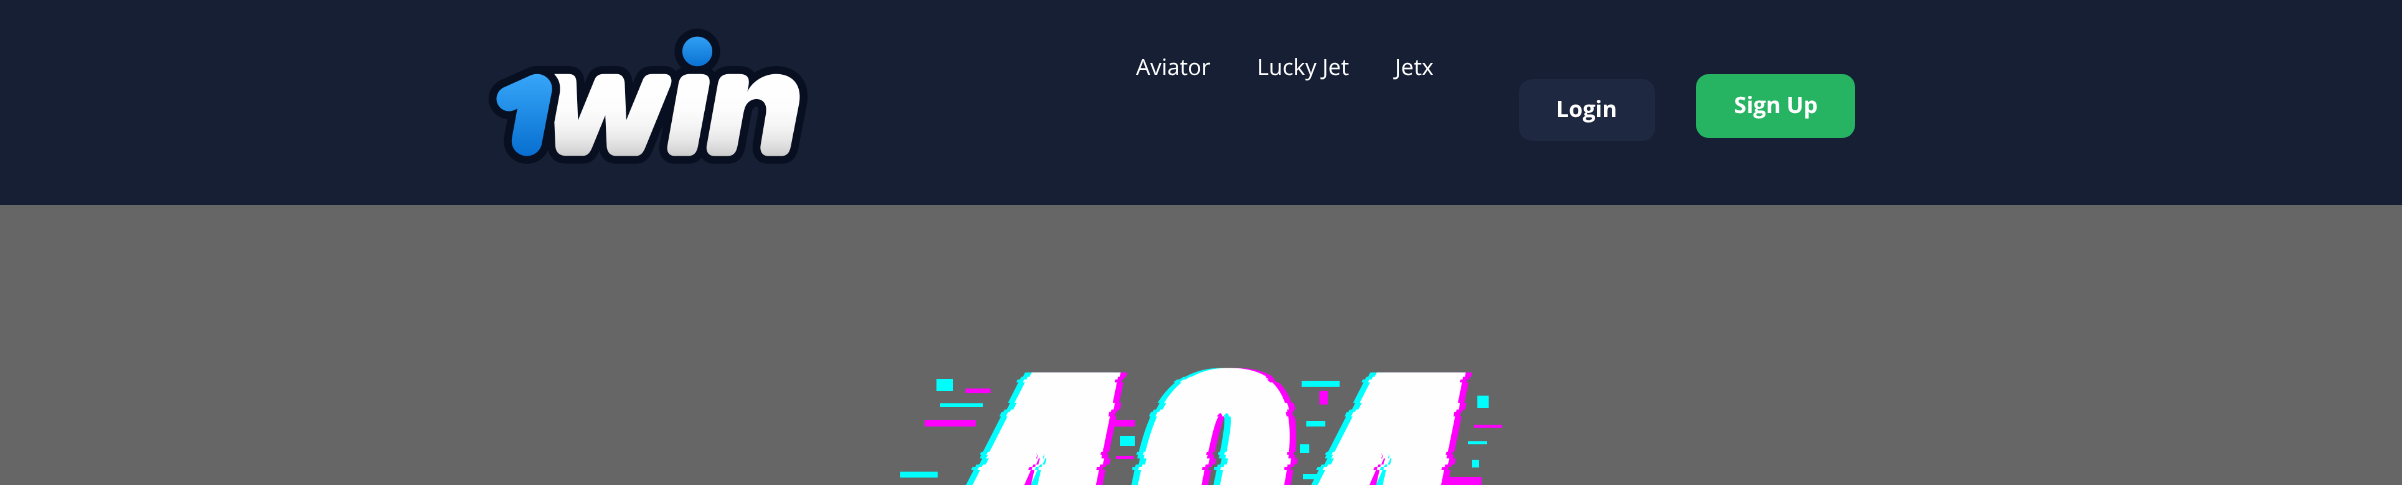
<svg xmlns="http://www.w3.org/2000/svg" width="2402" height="485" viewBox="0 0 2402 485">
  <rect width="100%" height="100%" fill="#161f34"/>
  <image x="488" y="28" width="320" height="136" href="img/1.png"/>
  <rect x="1519" y="79" width="136" height="62" rx="13" fill="#1f2841"/>
  <rect x="1696" y="74" width="159" height="64" rx="13" fill="#27b462"/>
  <path d="M0 205h2402v280H0z" fill="#666"/>
  <image x="900" y="367" width="603" height="118" href="img/2.png"/>
  <g font-family="Open Sans" font-size="22.5" fill="#fff">
    <text x="1136" y="75">Аviаtоr</text>
    <text x="1257" y="75">Luсkу Jеt</text>
    <text x="1395" y="75">Jеtx</text>
  </g>
  <g font-family="Open Sans" font-size="22.5" font-weight="bold" fill="#fff">
    <text x="1556" y="117">Login</text>
    <text x="1734" y="113">Sign Up</text>
  </g>
</svg>
